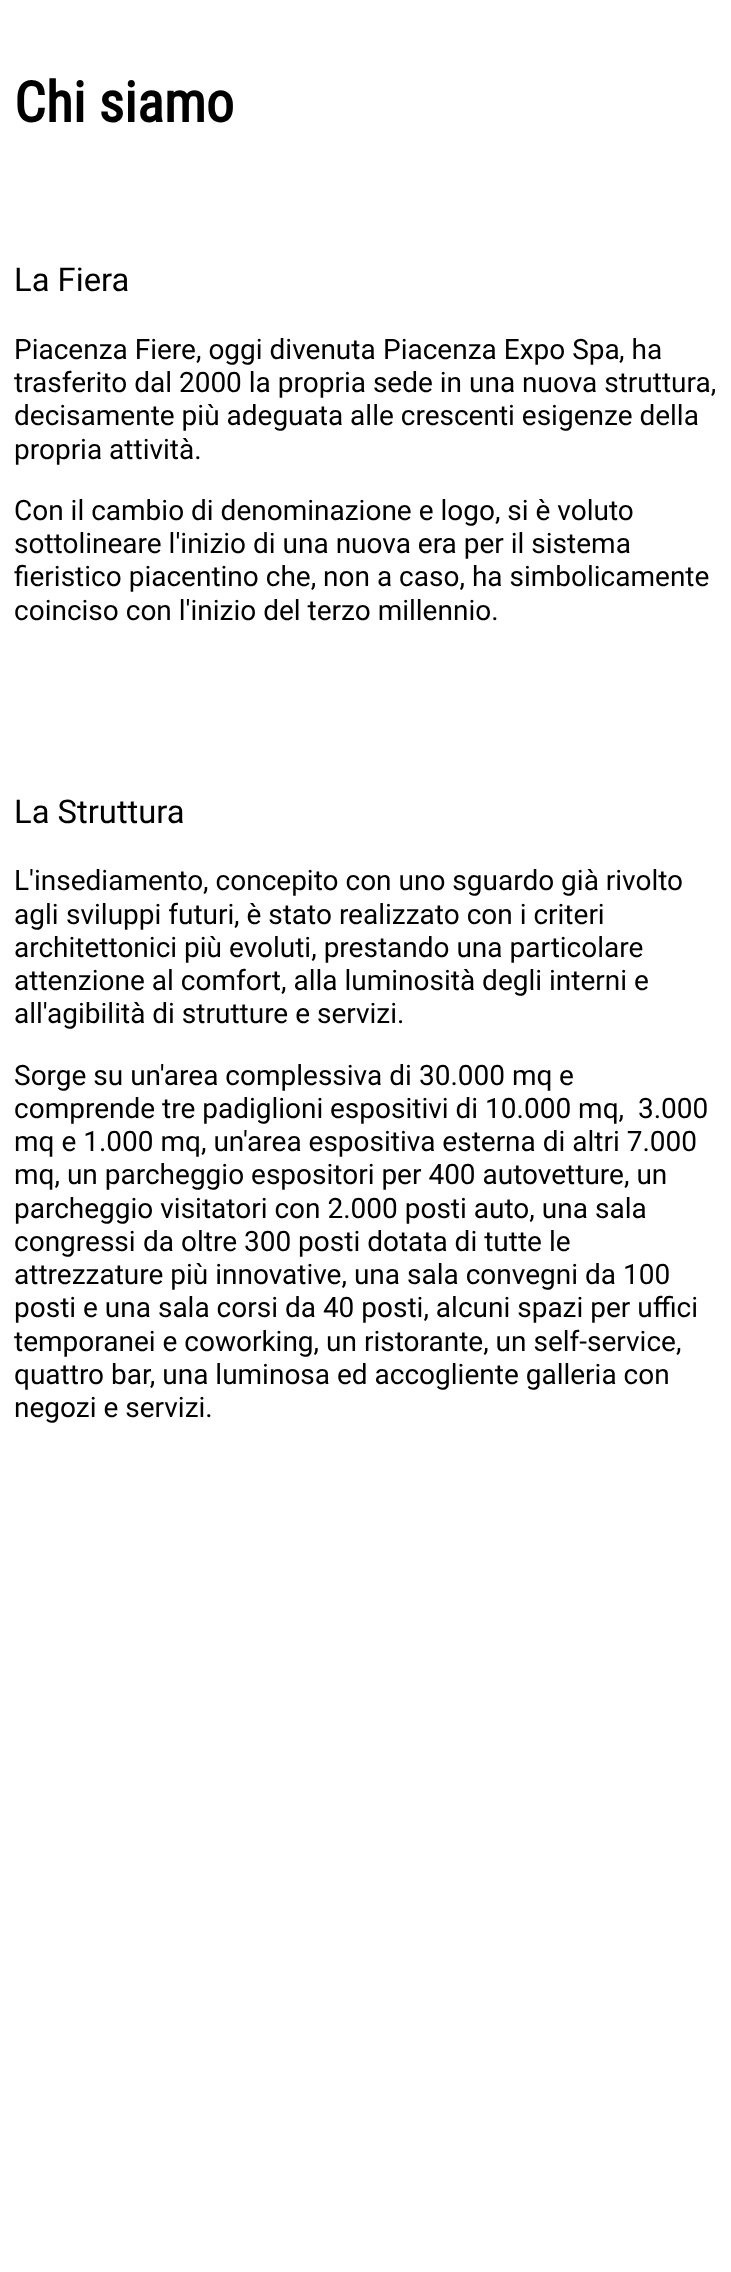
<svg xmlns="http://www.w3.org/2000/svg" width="731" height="2272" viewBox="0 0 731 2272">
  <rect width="100%" height="100%" fill="#fff"/>
  <text x="14" y="122" font-family="Roboto Condensed" font-size="56" font-weight="bold" fill="#000">Chi siamo</text>
  <text x="14" y="291" font-family="Roboto" font-size="32.75" fill="#000">La Fiera</text>
  <text x="14" y="359" font-family="'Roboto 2'" font-size="28" fill="#000">Piacenza Fiere, oggi divenuta</text>
  <text x="383" y="359" font-family="Roboto" font-size="28" fill="#000">Piacenza Expo Spa</text>
  <g font-family="'Roboto 2'" font-size="28" fill="#000">
    <text x="619" y="359">, ha</text>
    <text x="14" y="392">trasferito dal 2000 la propria sede in una nuova struttura,</text>
    <text x="14" y="425">decisamente più adeguata alle crescenti esigenze della</text>
    <text x="14" y="459">propria attività.</text>
    <text x="14" y="520">Con il cambio di denominazione e logo, si è voluto</text>
    <text x="14" y="553">sottolineare l'inizio di una nuova era per il sistema</text>
    <text x="14" y="586">fieristico piacentino che, non a caso, ha simbolicamente</text>
    <text x="14" y="620">coinciso con l'inizio del terzo millennio.</text>
  </g>
  <text x="14" y="823" font-family="Roboto" font-size="32.75" fill="#000">La Struttura</text>
  <g font-family="'Roboto 2'" font-size="28" fill="#000">
    <text x="14" y="890">L'insediamento, concepito con uno sguardo già rivolto</text>
    <text x="14" y="924">agli</text>
  </g>
  <text x="66" y="924" font-family="Roboto" font-size="28" fill="#000">sviluppi futuri</text>
  <g font-family="'Roboto 2'" font-size="28" fill="#000">
    <text x="234" y="924">, è stato realizzato con i criteri</text>
    <text x="14" y="957">architettonici più evoluti, prestando una particolare</text>
    <text x="14" y="990">attenzione al comfort, alla luminosità degli interni e</text>
    <text x="14" y="1023">all'agibilità di strutture e servizi.</text>
    <text x="14" y="1085">Sorge su un'area complessiva di</text>
  </g>
  <text x="419" y="1085" font-family="Roboto" font-size="28" fill="#000">30.000 mq</text>
  <g font-family="'Roboto 2'" font-size="28" fill="#000">
    <text x="559" y="1085">e</text>
    <text x="14" y="1118">comprende</text>
  </g>
  <text x="162" y="1118" font-family="Roboto" font-size="28" fill="#000">tre padiglioni</text>
  <g font-family="'Roboto 2'" font-size="28" fill="#000">
    <text x="330" y="1118" xml:space="preserve">espositivi di 10.000 mq,  3.000</text>
    <text x="14" y="1151">mq e 1.000 mq, un'area espositiva esterna di altri 7.000</text>
    <text x="14" y="1184">mq, un parcheggio espositori per 400 autovetture, un</text>
    <text x="14" y="1218">parcheggio visitatori con 2.000 posti auto, una</text>
  </g>
  <g font-family="Roboto" font-size="28" fill="#000">
    <text x="595" y="1218">sala</text>
    <text x="14" y="1251">congressi</text>
  </g>
  <g font-family="'Roboto 2'" font-size="28" fill="#000">
    <text x="143" y="1251">da oltre 300 posti dotata di tutte le</text>
    <text x="14" y="1284">attrezzature più innovative, una</text>
  </g>
  <text x="407" y="1284" font-family="Roboto" font-size="28" fill="#000">sala convegni</text>
  <g font-family="'Roboto 2'" font-size="28" fill="#000">
    <text x="585" y="1284">da 100</text>
    <text x="14" y="1317">posti e una sala corsi da 40 posti, alcuni spazi per uffici</text>
    <text x="14" y="1351">temporanei e coworking, un ristorante, un self-service,</text>
    <text x="14" y="1384">quattro bar, una luminosa ed accogliente galleria con</text>
    <text x="14" y="1417">negozi e servizi.</text>
  </g>
</svg>
